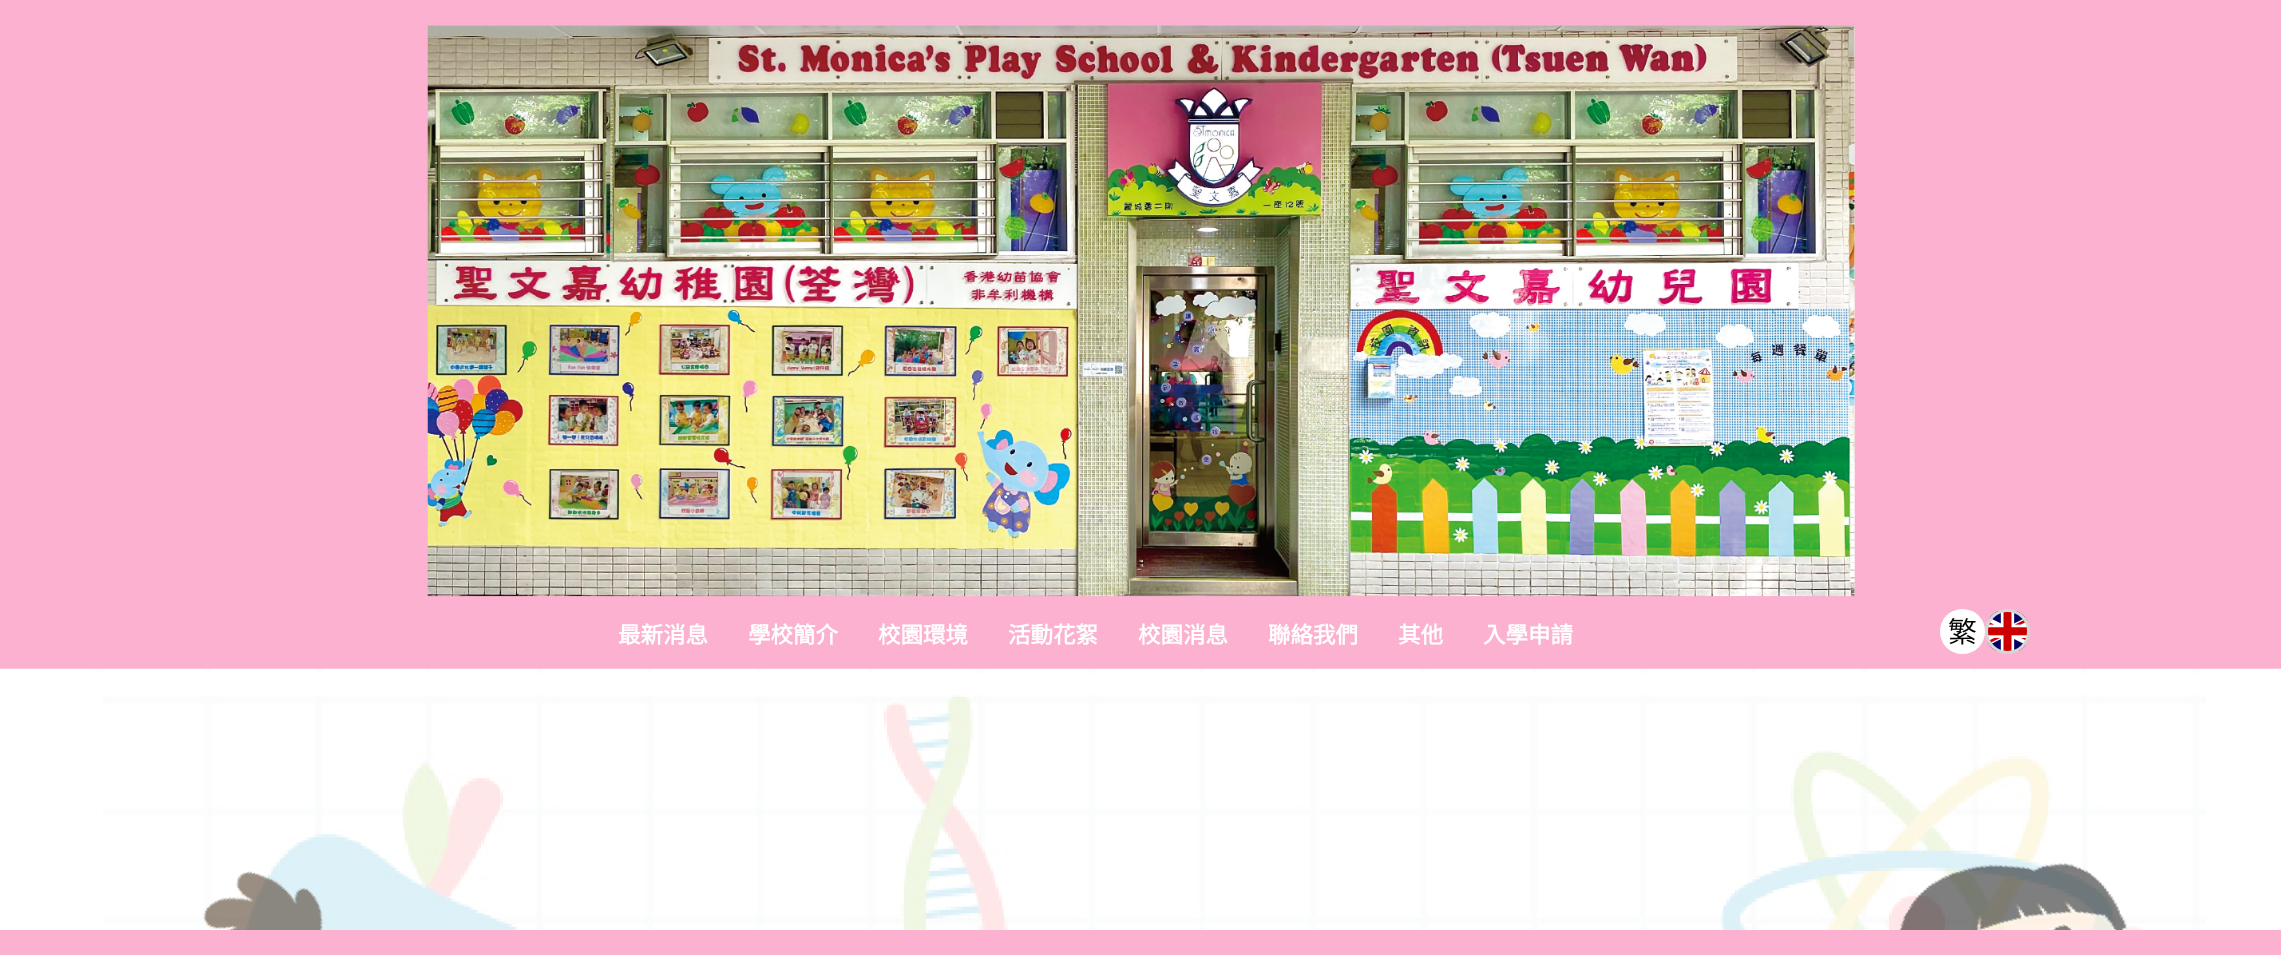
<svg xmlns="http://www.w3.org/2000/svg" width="2281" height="955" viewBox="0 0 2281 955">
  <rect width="100%" height="100%" fill="#fff"/>
  <path d="M0 0h2281v669H0z" fill="#fbb1cf"/>
  <image x="427" y="25" width="1428" height="572" href="img/1.png"/>
  <image x="1943" y="611" width="40" height="40" href="img/2.png"/>
  <circle cx="1962.5" cy="631.5" r="21" fill="none" stroke="#fff" stroke-width="3"/>
  <image x="1988" y="611" width="40" height="40" href="img/3.png"/>
  <circle cx="2007.5" cy="631.5" r="21" fill="none" stroke="#d6d6d6" stroke-width="3"/>
  <image x="0" y="668" width="2281" height="5" href="img/4.png"/>
  <image x="103" y="695" width="2103" height="235" href="img/5.png"/>
  <path d="M0 930h2281v25H0z" fill="#fbb1cf"/>
  <g font-family="Noto Sans CJK HK" font-size="22.5" font-weight="bold" fill="#fff">
    <text x="618" y="643">最新消息</text>
    <text x="748" y="643">學校簡介</text>
    <text x="878" y="643">校園環境</text>
    <text x="1008" y="643">活動花絮</text>
    <text x="1138" y="643">校園消息</text>
    <text x="1268" y="643">聯絡我們</text>
    <text x="1398" y="643">其他</text>
    <text x="1483" y="643">入學申請</text>
  </g>
</svg>
